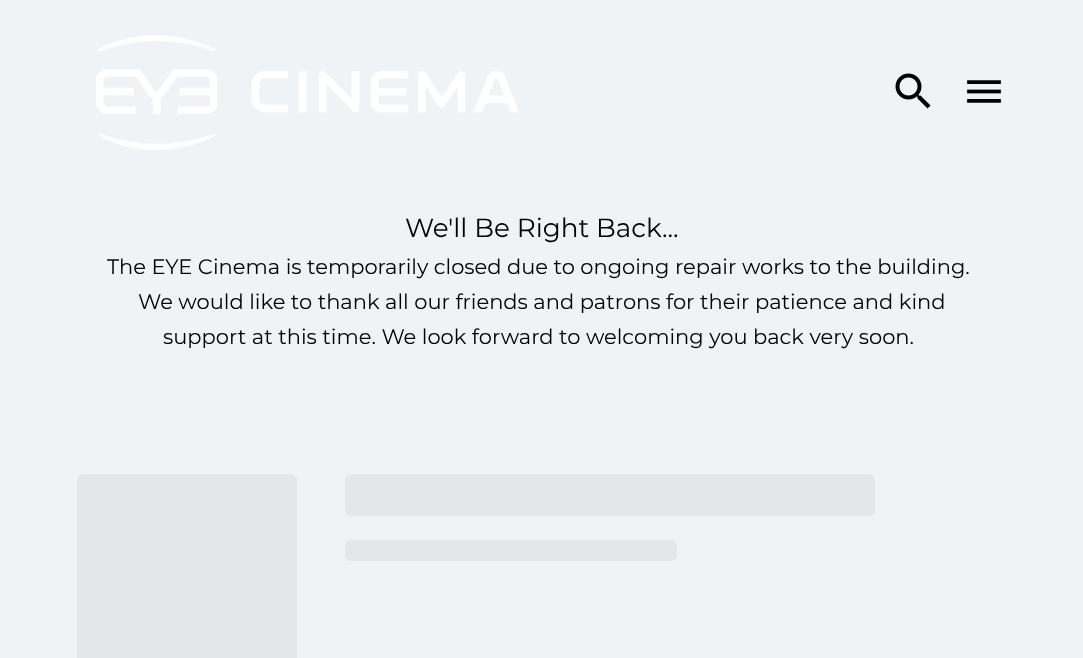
<svg xmlns="http://www.w3.org/2000/svg" width="1083" height="658" viewBox="0 0 1083 658">
  <rect width="100%" height="100%" fill="#f0f3f6"/>
  <image x="96" y="35" width="423" height="115" href="img/1.png"/>
  <image x="895" y="73" width="36" height="36" href="img/2.png"/>
  <image x="967" y="80" width="34" height="23" href="img/3.png"/>
  <rect x="77" y="474" width="220" height="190" rx="6" fill="#e4e7ea"/>
  <rect x="345" y="474" width="530" height="42" rx="6" fill="#e4e7ea"/>
  <rect x="345" y="540" width="332" height="21" rx="6" fill="#e4e7ea"/>
  <text x="405" y="237" font-family="Montserrat" font-size="26.25" font-weight="100" fill="#000">We'll Be Right Back...</text>
  <g font-family="Montserrat" font-size="21" font-weight="100" fill="#000">
    <text x="107" y="274">The EYE Cinema is temporarily closed due to ongoing repair works to the building.</text>
    <text x="138" y="309">We would like to thank all our friends and patrons for their patience and kind</text>
    <text x="163" y="344">support at this time. We look forward to welcoming you back very soon.</text>
  </g>
</svg>
